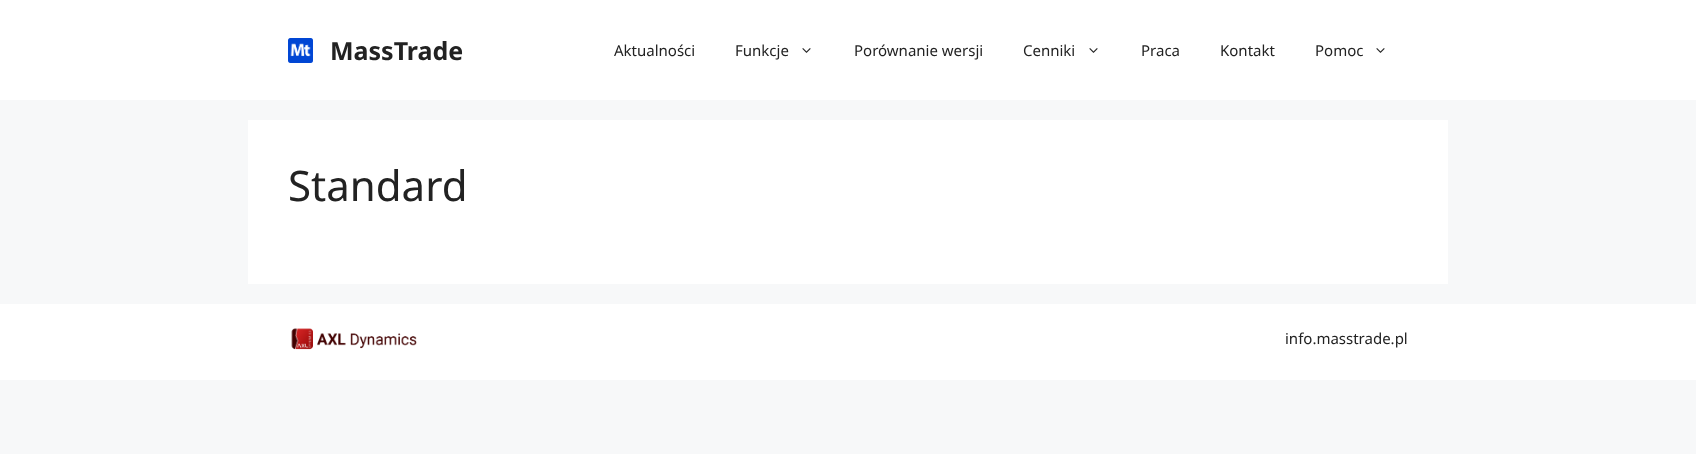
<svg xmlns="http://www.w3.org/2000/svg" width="1696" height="454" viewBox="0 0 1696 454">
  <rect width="100%" height="100%" fill="#f7f8f9"/>
  <path d="M0 0h1696v100H0z" fill="#fff"/>
  <image x="288" y="38" width="25" height="25" href="img/1.png"/>
  <image x="802" y="48" width="9" height="5" href="img/2.png"/>
  <image x="1089" y="48" width="9" height="5" href="img/2.png"/>
  <image x="1376" y="48" width="9" height="5" href="img/2.png"/>
  <path d="M248 120h1200v164H248z" fill="#fff"/>
  <path d="M0 304h1696v76H0z" fill="#fff"/>
  <image x="291" y="328" width="126" height="22" href="img/3.png"/>
  <text x="330" y="60" font-family="Noto Sans" font-size="25" font-weight="bold" fill="#222">MassTrade</text>
  <g font-family="Noto Sans" font-size="15" fill="#222">
    <text x="614" y="56">Aktualności</text>
    <text x="735" y="56">Funkcje</text>
    <text x="854" y="56">Porównanie wersji</text>
    <text x="1023" y="56">Cenniki</text>
    <text x="1141" y="56">Praca</text>
    <text x="1220" y="56">Kontakt</text>
    <text x="1315" y="56">Pomoc</text>
  </g>
  <text x="288" y="201" font-family="Noto Sans" font-size="42" fill="#222">Standard</text>
  <text x="1285" y="344" font-family="Noto Sans" font-size="15" fill="#222">info.masstrade.pl</text>
</svg>
